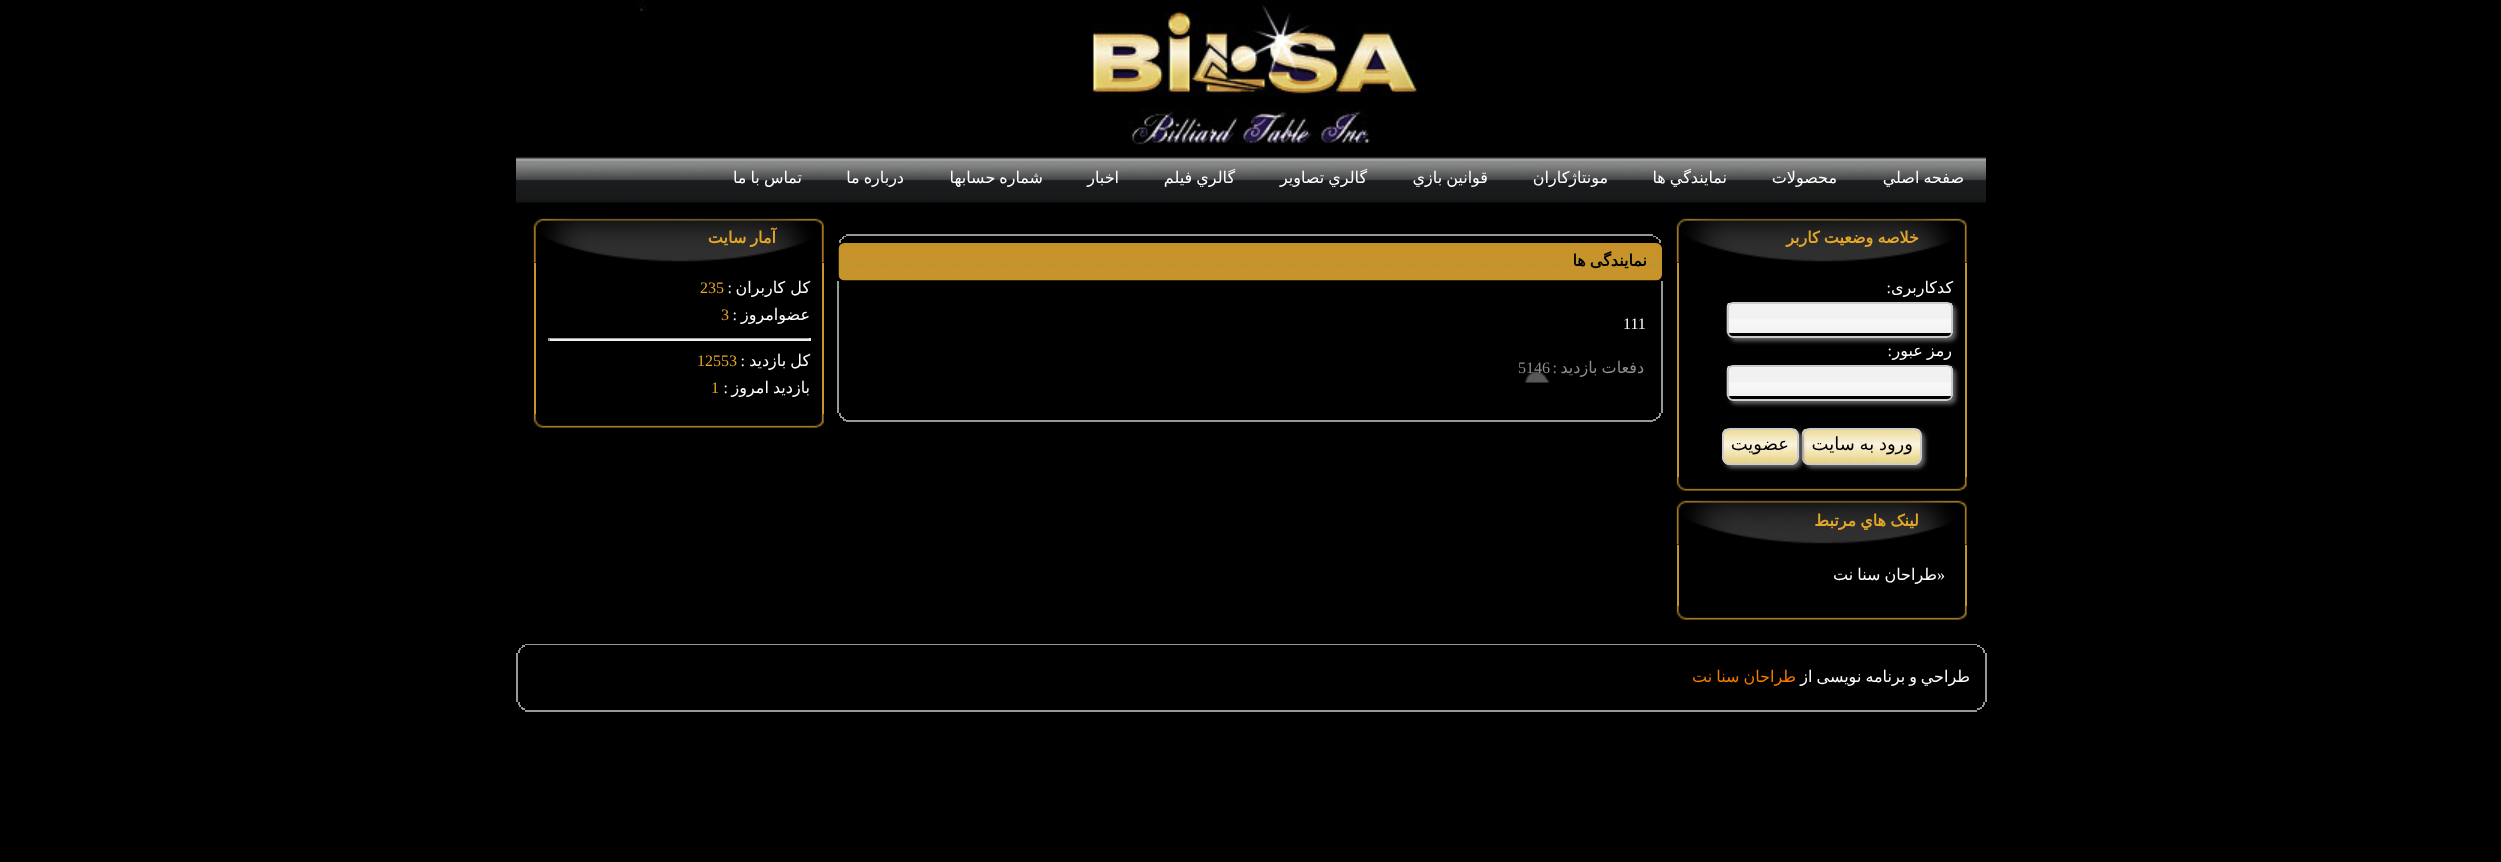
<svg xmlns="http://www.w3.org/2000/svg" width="2501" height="862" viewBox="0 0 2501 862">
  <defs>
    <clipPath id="clip1"><path d="M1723 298H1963V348H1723ZM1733 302H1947C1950.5 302 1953 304.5 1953 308V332C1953 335.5 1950.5 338 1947 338H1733C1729.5 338 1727 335.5 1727 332V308C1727 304.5 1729.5 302 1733 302Z" clip-rule="evenodd"/></clipPath>
    <clipPath id="clip2"><path d="M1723 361H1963V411H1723ZM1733 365H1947C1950.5 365 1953 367.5 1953 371V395C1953 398.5 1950.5 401 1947 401H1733C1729.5 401 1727 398.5 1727 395V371C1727 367.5 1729.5 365 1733 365Z" clip-rule="evenodd"/></clipPath>
  </defs>
  <rect width="100%" height="100%" fill="#000"/>
  <image x="636" y="0" width="783" height="145" href="img/1.png"/>
  <image x="516" y="157" width="1470" height="46" href="img/2.png"/>
  <image x="1676" y="218" width="291" height="45" href="img/3.png"/>
  <path d="M1965 263h2v214H1965z" fill="#c79429"/>
  <path d="M1677 263h2v214H1677z" fill="#c79429"/>
  <g clip-path="url(#clip1)">
    <rect x="1730" y="305" width="226" height="36" rx="6" fill="#666" filter="blur(2px)"/>
  </g>
  <image x="1726" y="303" width="227" height="30" href="img/4.png"/>
  <rect x="1728" y="303" width="224" height="34" rx="5" fill="none" stroke="#ccc" stroke-width="2"/>
  <g clip-path="url(#clip2)">
    <rect x="1730" y="368" width="226" height="36" rx="6" fill="#666" filter="blur(2px)"/>
  </g>
  <image x="1726" y="366" width="227" height="30" href="img/5.png"/>
  <rect x="1728" y="366" width="224" height="34" rx="5" fill="none" stroke="#ccc" stroke-width="2"/>
  <rect x="1805" y="431" width="120" height="37" rx="8" fill="#666" filter="blur(2px)"/>
  <image x="1801" y="429" width="121" height="36" href="img/6.png"/>
  <rect x="1803" y="429" width="118" height="35" rx="7" fill="none" stroke="#ccc" stroke-width="2"/>
  <rect x="1725" y="431" width="77" height="37" rx="8" fill="#666" filter="blur(2px)"/>
  <image x="1722" y="429" width="77" height="36" href="img/7.png"/>
  <rect x="1723" y="429" width="75" height="35" rx="7" fill="none" stroke="#ccc" stroke-width="2"/>
  <image x="1676" y="477" width="291" height="14" href="img/8.png"/>
  <image x="1676" y="500" width="291" height="45" href="img/3.png"/>
  <path d="M1965 545h2v61H1965z" fill="#c79429"/>
  <path d="M1677 545h2v61H1677z" fill="#c79429"/>
  <image x="1676" y="606" width="291" height="14" href="img/8.png"/>
  <path d="M846 234h807v2H846z" fill="#979898"/>
  <path d="M1653 236h3v1H1653z" fill="#979898"/>
  <path d="M843 236h3v1H843z" fill="#979898"/>
  <path d="M1656 237h2v2H1656z" fill="#979898"/>
  <path d="M842 237h2v2H842z" fill="#979898"/>
  <path d="M1658 239h2v1H1658z" fill="#979898"/>
  <path d="M840 239h2v1H840z" fill="#979898"/>
  <path d="M1659 240h2v3H1659z" fill="#979898"/>
  <path d="M839 240h2v3H839z" fill="#979898"/>
  <image x="838" y="243" width="824" height="38" href="img/9.png"/>
  <path d="M1661 281h2v132H1661z" fill="#979898"/>
  <path d="M837 281h2v132H837z" fill="#979898"/>
  <image x="1525" y="370" width="25" height="13" href="img/10.png"/>
  <path d="M1659 413h2v3H1659z" fill="#979898"/>
  <path d="M839 413h2v3H839z" fill="#979898"/>
  <path d="M1658 416h2v2H1658z" fill="#979898"/>
  <path d="M840 416h2v2H840z" fill="#979898"/>
  <path d="M1656 417h2v2H1656z" fill="#979898"/>
  <path d="M842 417h2v2H842z" fill="#979898"/>
  <path d="M1653 419h3v2H1653z" fill="#979898"/>
  <path d="M843 419h3v2H843z" fill="#979898"/>
  <path d="M846 420h807v2H846z" fill="#979898"/>
  <image x="533" y="218" width="291" height="45" href="img/11.png"/>
  <path d="M822 263h2v151H822z" fill="#c79429"/>
  <path d="M534 263h2v151H534z" fill="#c79429"/>
  <path d="M548 338h262v1H548z" fill="#9f9f9f"/>
  <path d="M809 338h2v3H809z" fill="#eee"/>
  <path d="M548 339h262v2H548z" fill="#eee"/>
  <path d="M548 338h2v3H548z" fill="#9f9f9f"/>
  <image x="533" y="414" width="291" height="14" href="img/12.png"/>
  <path d="M525 644h1452v1H525z" fill="#979898"/>
  <path d="M1977 645h3v2H1977z" fill="#979898"/>
  <path d="M522 645h3v2H522z" fill="#979898"/>
  <path d="M1980 647h2v1H1980z" fill="#979898"/>
  <path d="M521 647h2v1H521z" fill="#979898"/>
  <path d="M1982 648h2v2H1982z" fill="#979898"/>
  <path d="M519 648h2v2H519z" fill="#979898"/>
  <path d="M1983 650h2v3H1983z" fill="#979898"/>
  <path d="M518 650h2v3H518z" fill="#979898"/>
  <path d="M1985 653h2v49H1985z" fill="#979898"/>
  <path d="M516 653h2v49H516z" fill="#979898"/>
  <path d="M1983 702h2v3H1983z" fill="#979898"/>
  <path d="M518 702h2v3H518z" fill="#979898"/>
  <path d="M1982 705h2v2H1982z" fill="#979898"/>
  <path d="M519 705h2v2H519z" fill="#979898"/>
  <path d="M1980 707h2v2H1980z" fill="#979898"/>
  <path d="M521 707h2v2H521z" fill="#979898"/>
  <path d="M522 708h1v1H522z" fill="#000"/>
  <path d="M1977 708h3v2H1977z" fill="#979898"/>
  <path d="M522 708h3v2H522z" fill="#979898"/>
  <path d="M525 710h1452v2H525z" fill="#979898"/>
  <g font-family="DejaVu Sans" font-size="16" direction="rtl" fill="#fff">
    <text x="1964" y="183" word-spacing="-1">صفحه اصلي</text>
    <text x="1837" y="183">محصولات</text>
    <text x="1727" y="183" word-spacing="-1">نمايندگي ها</text>
    <text x="1608" y="183">مونتاژکاران</text>
    <text x="1488" y="183" word-spacing="-1">قوانين بازي</text>
    <text x="1367" y="183" word-spacing="-1">گالري تصاوير</text>
    <text x="1235" y="183" word-spacing="-1">گالري فيلم</text>
    <text x="1119" y="183">اخبار</text>
    <text x="1043" y="183" word-spacing="-1">شماره حسابها</text>
    <text x="904" y="183" word-spacing="-1">درباره ما</text>
    <text x="802" y="183" word-spacing="-1">تماس با ما</text>
  </g>
  <text x="1919" y="243" word-spacing="-1" font-family="DejaVu Sans" font-size="16" font-weight="bold" direction="rtl" fill="#e4a727">خلاصه وضعیت كاربر</text>
  <text x="1953" y="293" font-family="DejaVu Sans" font-size="16" direction="rtl" fill="#fff">كدكاربری</text>
  <text x="1891" y="293" font-family="Liberation Serif" font-size="16" direction="rtl" fill="#fff">:</text>
  <text x="1952" y="356" word-spacing="-1" font-family="DejaVu Sans" font-size="16" direction="rtl" fill="#fff">رمز عبور</text>
  <text x="1892" y="356" font-family="Liberation Serif" font-size="16" direction="rtl" fill="#fff">:</text>
  <g font-family="DejaVu Sans" font-size="18" direction="rtl" fill="#000">
    <text x="1913" y="450" word-spacing="-1">ورود به سایت</text>
    <text x="1789" y="450">عضویت</text>
  </g>
  <text x="1919" y="526" word-spacing="-1" font-family="DejaVu Sans" font-size="16" font-weight="bold" direction="rtl" fill="#e4a727">لينک هاي مرتبط</text>
  <text x="1937" y="580" font-family="Liberation Serif" font-size="16" fill="#fff">»</text>
  <text x="1937" y="580" word-spacing="-1" font-family="DejaVu Sans" font-size="16" direction="rtl" fill="#fff">طراحان سنا نت</text>
  <text x="1647" y="266" word-spacing="-1" font-family="DejaVu Sans" font-size="16" font-weight="bold" direction="rtl" fill="#000">نمایندگی ها</text>
  <text x="1623" y="329" font-family="Liberation Serif" font-size="16" fill="#fff">111</text>
  <text x="1644" y="373" word-spacing="-1" font-family="DejaVu Sans" font-size="16" direction="rtl" fill="#8d8d8d">دفعات بازدید</text>
  <text x="1557" y="373" font-family="Liberation Serif" font-size="16" direction="rtl" fill="#8d8d8d">:</text>
  <text x="1518" y="373" font-family="Liberation Serif" font-size="16" fill="#8d8d8d">5146</text>
  <text x="776" y="243" word-spacing="-1" font-family="DejaVu Sans" font-size="16" font-weight="bold" direction="rtl" fill="#e4a727">آمار سایت</text>
  <text x="810" y="293" font-family="DejaVu Sans" font-size="16" direction="rtl" fill="#fff">کل کاربران</text>
  <text x="732" y="293" font-family="Liberation Serif" font-size="16" direction="rtl" fill="#fff">:</text>
  <text x="700" y="293" font-family="Liberation Serif" font-size="16" fill="#e4a727">235</text>
  <text x="810" y="320" font-family="DejaVu Sans" font-size="16" direction="rtl" fill="#fff">عضوامروز</text>
  <text x="737" y="320" font-family="Liberation Serif" font-size="16" direction="rtl" fill="#fff">:</text>
  <text x="721" y="320" font-family="Liberation Serif" font-size="16" fill="#e4a727">3</text>
  <text x="810" y="366" word-spacing="-1" font-family="DejaVu Sans" font-size="16" direction="rtl" fill="#fff">کل بازدید</text>
  <text x="745" y="366" font-family="Liberation Serif" font-size="16" direction="rtl" fill="#fff">:</text>
  <text x="697" y="366" font-family="Liberation Serif" font-size="16" fill="#e4a727">12553</text>
  <text x="810" y="393" word-spacing="-1" font-family="DejaVu Sans" font-size="16" direction="rtl" fill="#fff">بازدید امروز</text>
  <text x="728" y="393" font-family="Liberation Serif" font-size="16" direction="rtl" fill="#fff">:</text>
  <text x="711" y="393" font-family="Liberation Serif" font-size="16" fill="#e4a727">1</text>
  <g font-family="DejaVu Sans" font-size="16" direction="rtl" fill="#fff">
    <text x="1970" y="682">طراحي</text>
    <text x="1917" y="682" word-spacing="-1">و برنامه نویسی از</text>
  </g>
  <text x="1796" y="682" word-spacing="-1" font-family="DejaVu Sans" font-size="16" direction="rtl" fill="#f47a00">طراحان سنا نت</text>
</svg>
